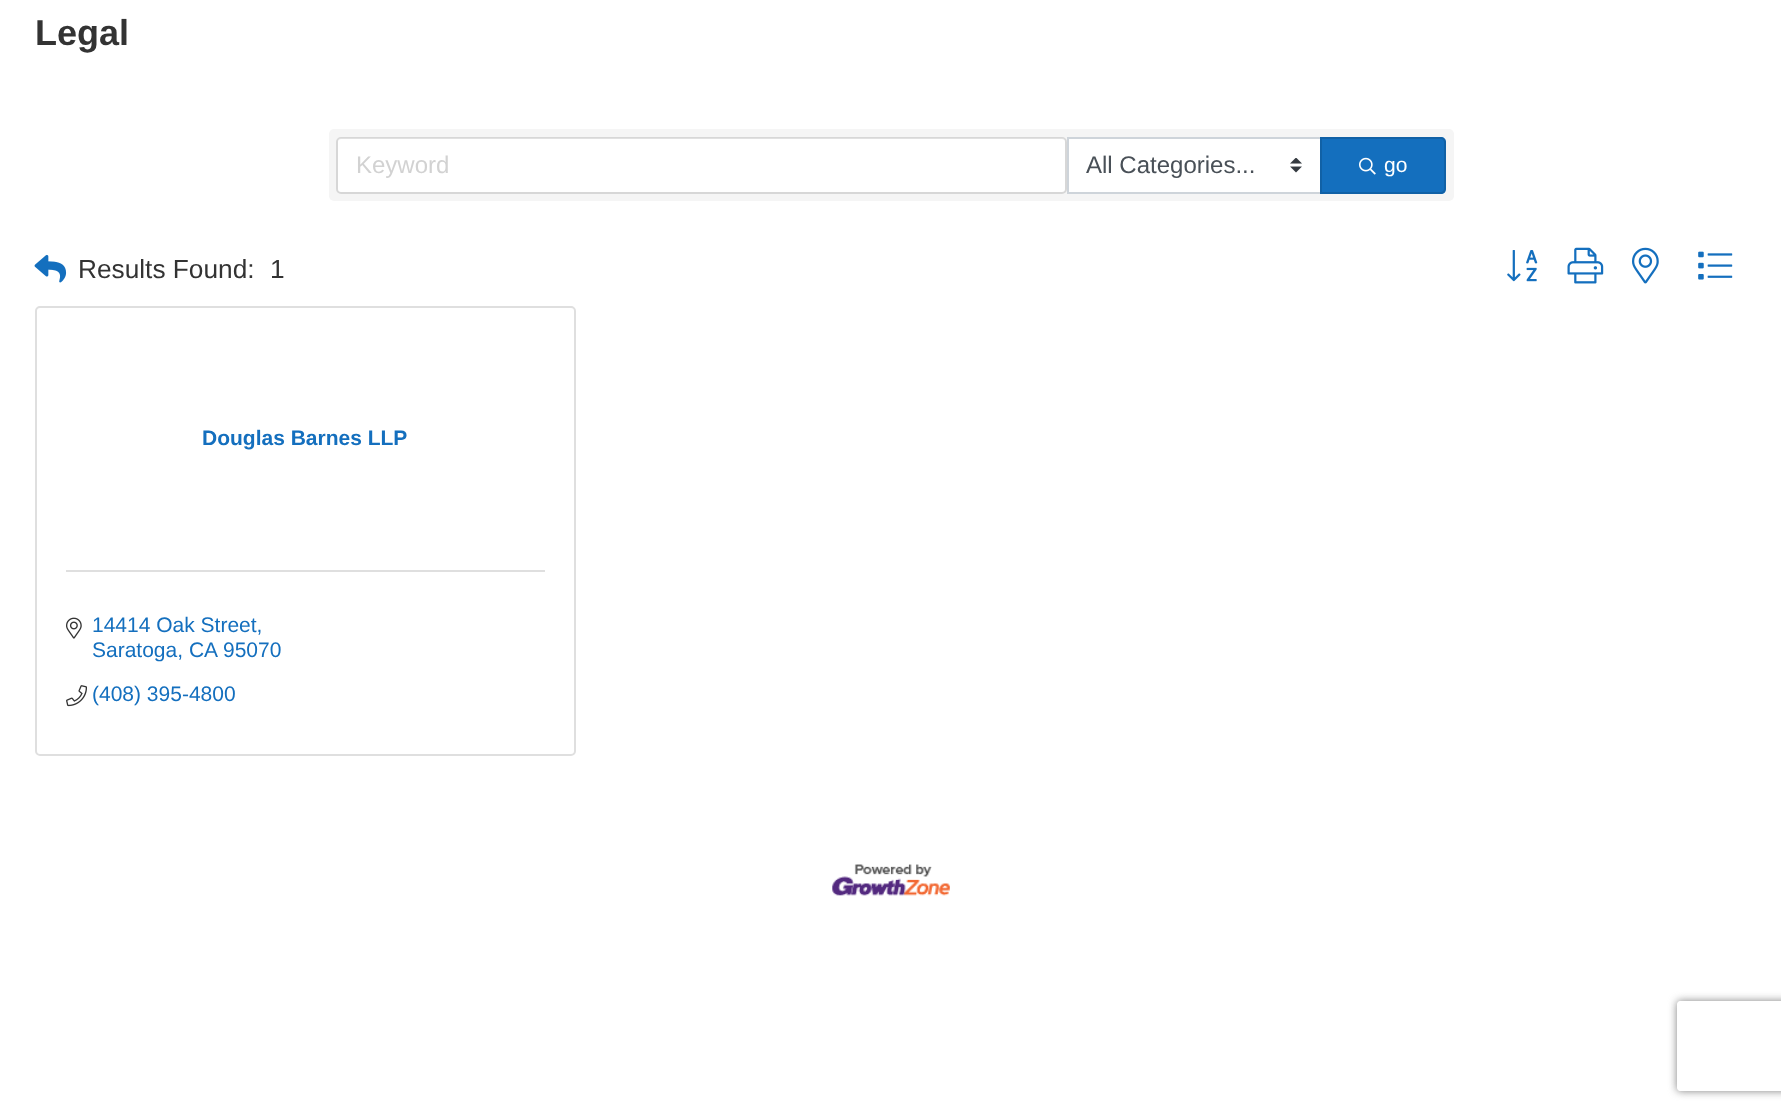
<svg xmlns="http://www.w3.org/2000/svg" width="1781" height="1111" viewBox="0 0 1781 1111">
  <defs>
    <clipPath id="clip1"><path d="M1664 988H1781V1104H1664ZM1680 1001H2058C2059.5 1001 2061 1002.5 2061 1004V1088C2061 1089.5 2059.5 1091 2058 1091H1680C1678.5 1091 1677 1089.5 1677 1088V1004C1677 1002.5 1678.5 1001 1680 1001Z" clip-rule="evenodd"/></clipPath>
  </defs>
  <rect width="100%" height="100%" fill="#fff"/>
  <rect x="329" y="129" width="1125" height="72" rx="5" fill="#f5f5f5"/>
  <rect x="338" y="138" width="727" height="54" rx="3" fill="#fff"/>
  <rect x="337" y="138" width="729" height="55" rx="4" fill="none" stroke="#0000001f" stroke-width="2"/>
  <path d="M1069 139h251v53H1069z" fill="#fff"/>
  <image x="1290" y="158" width="12" height="15" href="img/1.png"/>
  <path d="M1068 138h253v55H1068z" fill="none" stroke="#ced4da" stroke-width="2"/>
  <path d="M1320 137H1441C1444 137 1446 139 1446 142V189C1446 192 1444 194 1441 194H1320Z" fill="#146fbe"/>
  <path d="M1321 138H1441C1443 138 1445 140 1445 142V189C1445 191 1443 193 1441 193H1321Z" fill="none" stroke="#0000001f" stroke-width="2"/>
  <image x="1359" y="157" width="17" height="18" href="img/2.png"/>
  <image x="34" y="254" width="33" height="29" href="img/3.png"/>
  <image x="1507" y="250" width="31" height="32" href="img/4.png"/>
  <image x="1567" y="247" width="37" height="37" href="img/5.png"/>
  <image x="1632" y="247" width="27" height="37" href="img/6.png"/>
  <image x="1698" y="251" width="35" height="29" href="img/7.png"/>
  <rect x="36" y="307" width="539" height="448" rx="4" fill="none" stroke="#dfdfdf" stroke-width="2"/>
  <path d="M66 570h479v2H66z" fill="#dfdfdf"/>
  <image x="66" y="617" width="16" height="22" href="img/8.png"/>
  <image x="66" y="685" width="21" height="22" href="img/9.png"/>
  <image x="832" y="864" width="118" height="32" href="img/10.png"/>
  <g clip-path="url(#clip1)">
    <rect x="1677" y="1001" width="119" height="90" rx="3" fill="#808080" filter="blur(4px)"/>
  </g>
  <text x="35" y="45" font-family="Liberation Sans" font-size="36" font-weight="bold" fill="#333">Legal</text>
  <text x="356" y="173" font-family="Liberation Sans" font-size="24" fill="#d2d2d2">Keyword</text>
  <text x="1086" y="173" font-family="Liberation Sans" font-size="24" fill="#495057">All Categories...</text>
  <text x="1384" y="172" font-family="Liberation Sans" font-size="21" fill="#fff">go</text>
  <g font-family="Liberation Sans" font-size="26.25" fill="#333">
    <text x="78" y="278">Results Found:</text>
    <text x="270" y="278">1</text>
  </g>
  <text x="202" y="445" font-family="Liberation Sans" font-size="21" font-weight="bold" fill="#146fbe">Douglas Barnes LLP</text>
  <g font-family="Liberation Sans" font-size="21" fill="#146fbe">
    <text x="92" y="632">14414 Oak Street,</text>
    <text x="92" y="657">Saratoga, CA</text>
    <text x="223" y="657">95070</text>
    <text x="92" y="701">(408) 395-4800</text>
  </g>
</svg>
